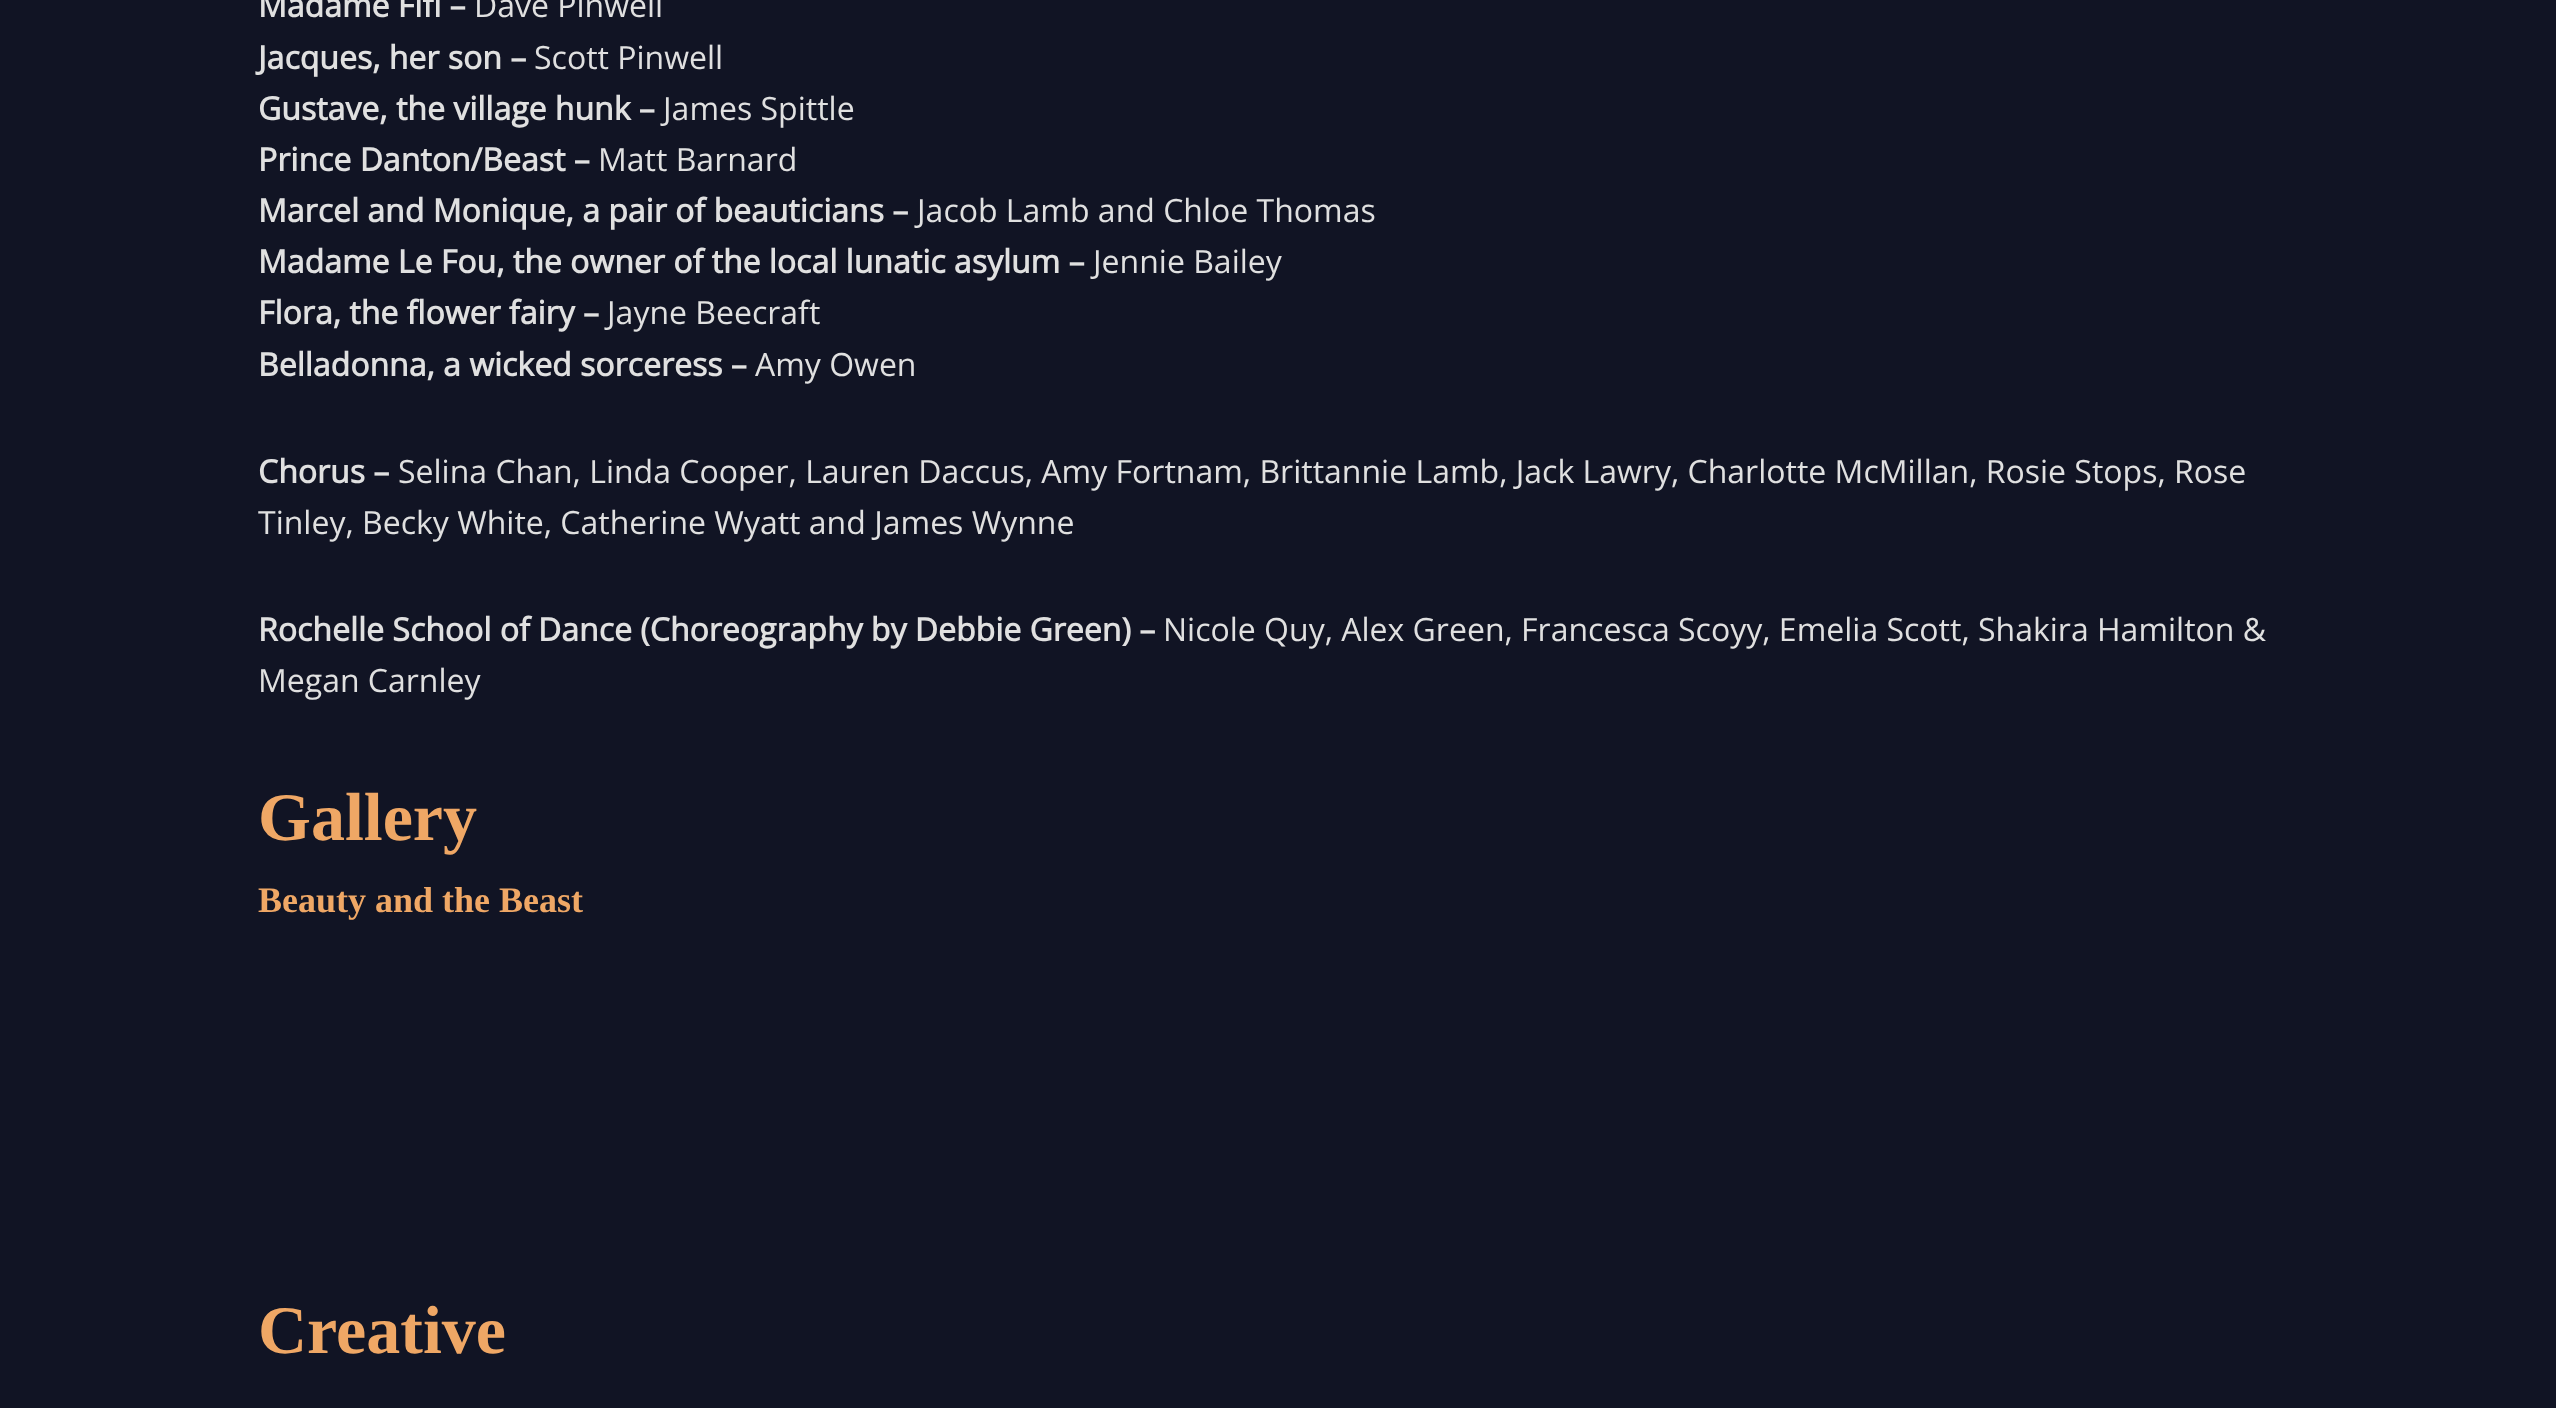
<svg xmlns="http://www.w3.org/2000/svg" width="2556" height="1408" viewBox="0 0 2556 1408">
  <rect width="100%" height="100%" fill="#111424"/>
  <text x="258" y="17" font-family="Open Sans" font-size="32" font-weight="bold" fill="#e0e0e0">Madame Fifi –</text>
  <text x="474" y="17" font-family="Open Sans" font-size="32" fill="#e0e0e0">Dave Pinwell</text>
  <text x="258" y="69" font-family="Open Sans" font-size="32" font-weight="bold" fill="#e0e0e0">Jacques, her son –</text>
  <text x="534" y="69" font-family="Open Sans" font-size="32" fill="#e0e0e0">Scott Pinwell</text>
  <text x="258" y="120" font-family="Open Sans" font-size="32" font-weight="bold" fill="#e0e0e0">Gustave, the village hunk –</text>
  <text x="663" y="120" font-family="Open Sans" font-size="32" fill="#e0e0e0">James Spittle</text>
  <text x="258" y="171" font-family="Open Sans" font-size="32" font-weight="bold" fill="#e0e0e0">Prince Danton/Beast –</text>
  <text x="598" y="171" font-family="Open Sans" font-size="32" fill="#e0e0e0">Matt Barnard</text>
  <text x="258" y="222" font-family="Open Sans" font-size="32" font-weight="bold" fill="#e0e0e0">Marcel and Monique, a pair of beauticians –</text>
  <text x="917" y="222" font-family="Open Sans" font-size="32" fill="#e0e0e0">Jacob Lamb and Chloe Thomas</text>
  <text x="258" y="273" font-family="Open Sans" font-size="32" font-weight="bold" fill="#e0e0e0">Madame Le Fou, the owner of the local lunatic asylum –</text>
  <text x="1093" y="273" font-family="Open Sans" font-size="32" fill="#e0e0e0">Jennie Bailey</text>
  <text x="258" y="324" font-family="Open Sans" font-size="32" font-weight="bold" fill="#e0e0e0">Flora, the flower fairy –</text>
  <text x="607" y="324" font-family="Open Sans" font-size="32" fill="#e0e0e0">Jayne Beecraft</text>
  <text x="258" y="376" font-family="Open Sans" font-size="32" font-weight="bold" fill="#e0e0e0">Belladonna, a wicked sorceress –</text>
  <text x="755" y="376" font-family="Open Sans" font-size="32" fill="#e0e0e0">Amy Owen</text>
  <text x="258" y="483" font-family="Open Sans" font-size="32" font-weight="bold" fill="#e0e0e0">Chorus –</text>
  <g font-family="Open Sans" font-size="32" fill="#e0e0e0">
    <text x="398" y="483">Selina Chan, Linda Cooper, Lauren Daccus, Amy Fortnam, Brittannie Lamb, Jack Lawry, Charlotte McMillan, Rosie Stops, Rose</text>
    <text x="258" y="534">Tinley, Becky White, Catherine Wyatt and James Wynne</text>
  </g>
  <text x="258" y="641" font-family="Open Sans" font-size="32" font-weight="bold" fill="#e0e0e0">Rochelle School of Dance (Choreography by Debbie Green) –</text>
  <g font-family="Open Sans" font-size="32" fill="#e0e0e0">
    <text x="1163" y="641">Nicole Quy, Alex Green, Francesca Scoyy, Emelia Scott, Shakira Hamilton &amp;</text>
    <text x="258" y="692">Megan Carnley</text>
  </g>
  <text x="258" y="840" font-family="Liberation Serif" font-size="68" font-weight="bold" fill="#efa765">Gallery</text>
  <text x="258" y="912" font-family="Liberation Serif" font-size="36" font-weight="bold" fill="#efa765">Beauty and the Beast</text>
  <text x="258" y="1353" font-family="Liberation Serif" font-size="68" font-weight="bold" fill="#efa765">Creative</text>
</svg>
